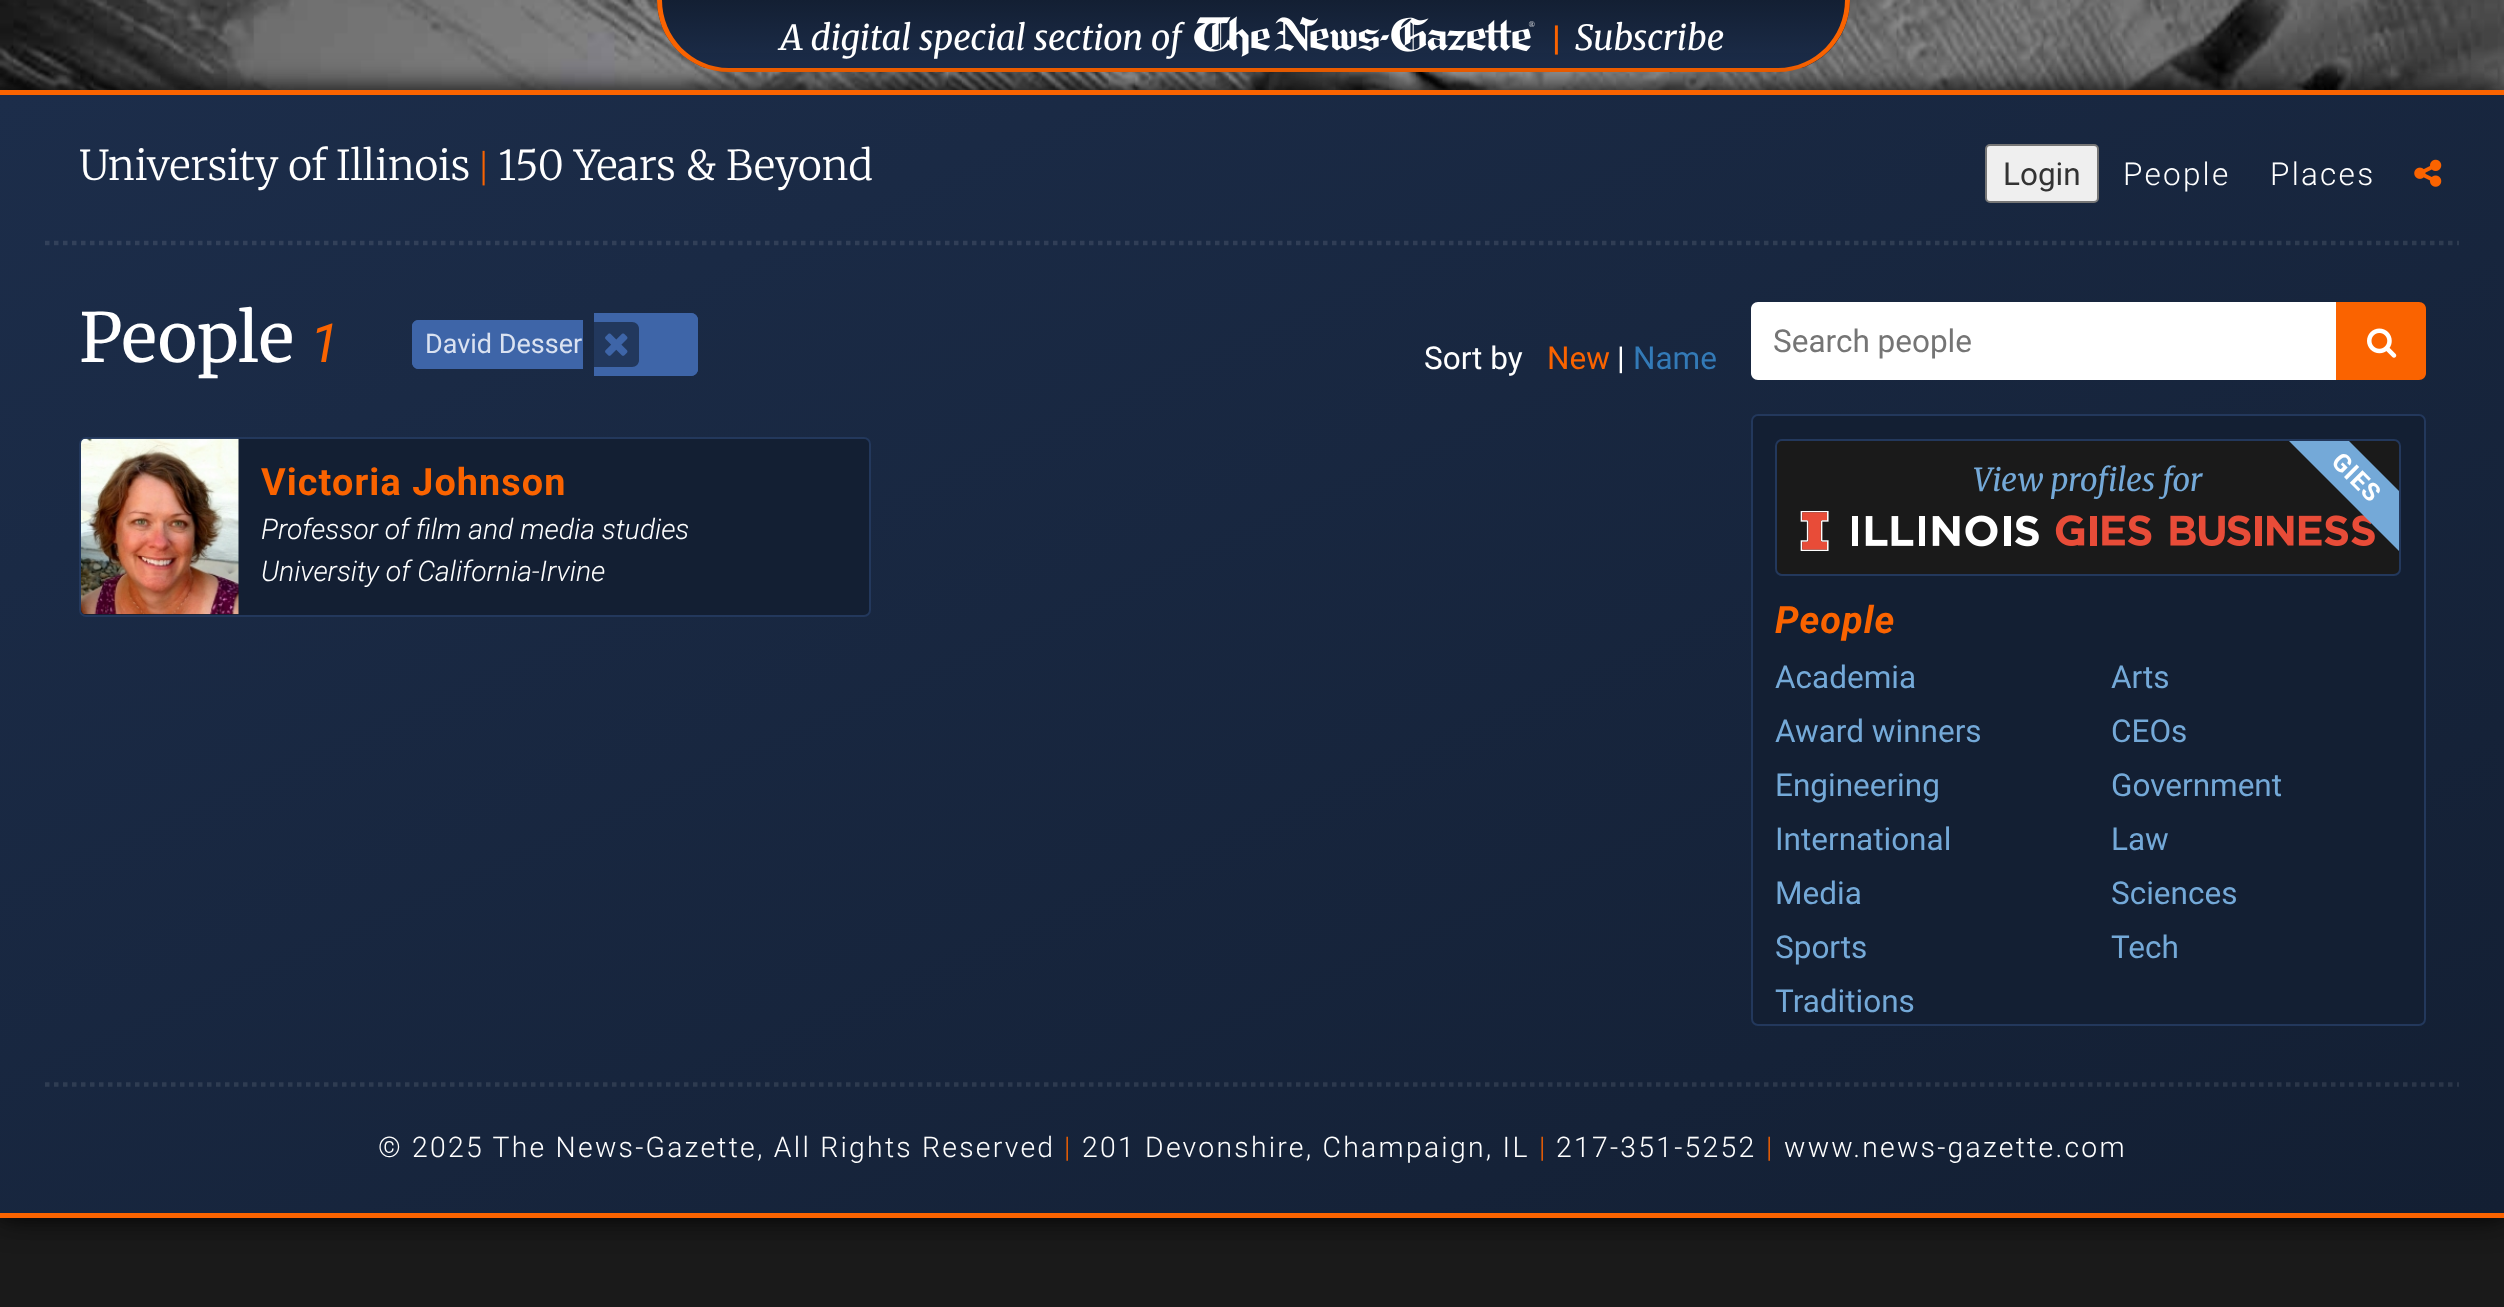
<svg xmlns="http://www.w3.org/2000/svg" width="2504" height="1307" viewBox="0 0 2504 1307">
  <defs>
    <clipPath id="clip1"><path d="M657 0H1850C1850 40 1818 72 1778 72H729C689 72 657 40 657 0Z"/></clipPath>
    <linearGradient id="g1" gradientUnits="userSpaceOnUse" x1="1253" y1="0" x2="1253" y2="68"><stop offset="0" stop-color="#131f33"/><stop offset="1" stop-color="#1c2d4a"/></linearGradient>
    <linearGradient id="g2" gradientUnits="userSpaceOnUse" x1="836" y1="-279" x2="1668" y2="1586"><stop offset="0" stop-color="#1c2d4a"/><stop offset="1" stop-color="#131f33"/></linearGradient>
  </defs>
  <rect width="100%" height="100%" fill="#fff"/>
  <image x="0" y="0" width="2504" height="90" href="img/1.png"/>
  <g clip-path="url(#clip1)">
    <path d="M657 0h1193v68H657z" fill="url(#g1)"/>
  </g>
  <path d="M657 0H1850C1850 40 1817 72 1778 72H729C689 72 657 40 657 0ZM662 0H1845C1845 37 1815 68 1778 68H729C692 68 662 37 662 0Z" fill="#fa6300" fill-rule="evenodd"/>
  <image x="1194" y="16" width="341" height="41" href="img/2.png"/>
  <path d="M0 1218h2504v89H0z" fill="#1a1a1a"/>
  <path d="M0 90h2504v1127H0z" fill="#00000099" filter="blur(16px)"/>
  <path d="M0 90h2504v1127H0z" fill="#00000099" filter="blur(10px)"/>
  <path d="M0 95h2504v1118H0z" fill="url(#g2)"/>
  <path d="M0 90h2504v5H0z" fill="#fa6300"/>
  <path d="M0 1213h2504v5H0z" fill="#fa6300"/>
  <rect x="1986" y="145" width="112" height="57" rx="4" fill="#efefef" stroke="#767676" stroke-width="2"/>
  <image x="2414" y="159" width="28" height="28" href="img/3.png"/>
  <path d="M45 243H2459" fill="none" stroke="#ffffff1a" stroke-width="4.5" stroke-dasharray="4.5 4.5"/>
  <path d="M419 320H583V369H419C415 369 412 366 412 362V327C412 323 415 320 419 320Z" fill="#3e65a8"/>
  <path d="M418 320H583V369H418C415 369 412 366 412 362V326C412 323 415 320 418 320ZM418 322H583V367H418C416 367 414 365 414 362V326C414 324 416 322 418 322Z" fill="#3e65a8" fill-rule="evenodd"/>
  <path d="M594 313H691C695 313 698 316 698 320V369C698 373 695 376 691 376H594Z" fill="#3e65a8"/>
  <path d="M594 313H691C694 313 698 316 698 320V369C698 373 694 376 691 376H594ZM594 315H691C693 315 695 317 695 320V369C695 371 693 374 691 374H594Z" fill="#3e65a8" fill-rule="evenodd"/>
  <path d="M594 322H632C636 322 639 325 639 329V360C639 364 636 367 632 367H594Z" fill="#22385d"/>
  <image x="605" y="333" width="23" height="23" href="img/4.png"/>
  <rect x="80" y="438" width="790" height="178" rx="6" fill="#131f33" stroke="#23385c" stroke-width="2"/>
  <image x="81" y="438" width="158" height="177" href="img/5.png"/>
  <path d="M1758 302H2336V380H1758C1754 380 1751 377 1751 373V309C1751 305 1754 302 1758 302Z" fill="#fff"/>
  <path d="M2336 302H2419C2423 302 2426 305 2426 309V373C2426 377 2423 380 2419 380H2336Z" fill="#fa6300"/>
  <image x="2367" y="328" width="30" height="30" href="img/6.png"/>
  <rect x="1752" y="415" width="673" height="610" rx="6" fill="#131f33" stroke="#23385c" stroke-width="2"/>
  <rect x="1776" y="440" width="624" height="135" rx="6" fill="#1a1a1a" stroke="#23385c" stroke-width="2"/>
  <image x="1800" y="511" width="575" height="40" href="img/7.png"/>
  <path d="M2349 441L2399 491V551L2289 441Z" fill="#74a9d8"/>
  <path d="M45 1084.5H2459" fill="none" stroke="#ffffff1a" stroke-width="4.5" stroke-dasharray="4.5 4.5"/>
  <text x="780" y="50" font-family="Merriweather" font-size="34.6" font-style="italic" fill="#fff">A digital special section of</text>
  <text x="1552" y="50" font-family="Roboto" font-size="34.6" font-weight="bold" fill="#fa6300">|</text>
  <text x="1575" y="50" font-family="Merriweather" font-size="34.6" font-style="italic" fill="#fff">Subscribe</text>
  <g font-family="Merriweather" font-size="41" font-weight="300" fill="#fff">
    <text x="79" y="180">U</text>
    <text x="108" y="180">niversity of Illinois</text>
  </g>
  <text x="479" y="180" font-family="Roboto" font-size="41" font-weight="300" fill="#fa6300">|</text>
  <text x="498" y="180" font-family="Merriweather" font-size="41" font-weight="300" fill="#fff">150 Years &amp; Beyond</text>
  <text x="2003" y="185" font-family="Roboto" font-size="31.5" fill="#333">Login</text>
  <g font-family="Roboto" font-size="31.5" font-weight="300" letter-spacing="2.25" fill="#fff">
    <text x="2123" y="185">People</text>
    <text x="2270" y="185">Places</text>
  </g>
  <text x="79" y="362" font-family="Merriweather" font-size="67.5" fill="#fff">People</text>
  <text x="310" y="362" font-family="Roboto" font-size="54" font-style="italic" fill="#fa6300">1</text>
  <text x="425" y="353" font-family="Roboto" font-size="27" fill="#dae2f1">David Desser</text>
  <text x="1424" y="369" font-family="Roboto" font-size="31.5" fill="#fff">Sort by</text>
  <text x="1547" y="369" font-family="Roboto" font-size="31.5" fill="#fa6300">New</text>
  <text x="1617" y="369" font-family="Roboto" font-size="31.5" fill="#fff">|</text>
  <text x="1633" y="369" font-family="Roboto" font-size="31.5" fill="#337ab7">Name</text>
  <text x="261" y="495" font-family="Roboto" font-size="37.75" font-weight="bold" letter-spacing="1.1" fill="#fa6300">Victoria Johnson</text>
  <g font-family="Roboto" font-size="28.35" font-weight="300" font-style="italic" fill="#fff">
    <text x="261" y="539">Professor of film and media studies</text>
    <text x="261" y="581">University of California-Irvine</text>
  </g>
  <text x="1773" y="352" font-family="Roboto" font-size="31.5" fill="#757575">Search people</text>
  <text x="1973" y="491" font-family="Merriweather" font-size="31.5" font-style="italic" fill="#74a9d8">View profiles for</text>
  <text x="2330" y="463" transform="rotate(45 2330 463)" font-family="Roboto" font-size="25" font-weight="bold" letter-spacing="1" fill="#fff">GIES</text>
  <text x="1775" y="633" font-family="Roboto" font-size="37.75" font-weight="bold" font-style="italic" letter-spacing="1.1" fill="#fa6300">People</text>
  <g font-family="Roboto" font-size="31.5" fill="#74a9d8">
    <text x="1775" y="688">Academia</text>
    <text x="2111" y="688">Arts</text>
    <text x="1775" y="742">Award winners</text>
    <text x="2111" y="742">CEOs</text>
    <text x="1775" y="796">Engineering</text>
    <text x="2111" y="796">Government</text>
    <text x="1775" y="850">International</text>
    <text x="2111" y="850">Law</text>
    <text x="1775" y="904">Media</text>
    <text x="2111" y="904">Sciences</text>
    <text x="1775" y="958">Sports</text>
    <text x="2111" y="958">Tech</text>
    <text x="1775" y="1012">Traditions</text>
  </g>
  <text x="378" y="1157" font-family="Roboto" font-size="28.35" font-weight="300" letter-spacing="2.25" fill="#fff">© 2025 The News-Gazette, All Rights Reserved</text>
  <text x="1064" y="1157" font-family="Roboto" font-size="28.35" font-weight="300" letter-spacing="2.25" fill="#fa6300">|</text>
  <text x="1082" y="1157" font-family="Roboto" font-size="28.35" font-weight="300" letter-spacing="2.25" fill="#fff">201 Devonshire, Champaign, IL</text>
  <text x="1539" y="1157" font-family="Roboto" font-size="28.35" font-weight="300" letter-spacing="2.25" fill="#fa6300">|</text>
  <text x="1556" y="1157" font-family="Roboto" font-size="28.35" font-weight="300" letter-spacing="2.25" fill="#fff">217-351-5252</text>
  <text x="1766" y="1157" font-family="Roboto" font-size="28.35" font-weight="300" letter-spacing="2.25" fill="#fa6300">|</text>
  <text x="1784" y="1157" font-family="Roboto" font-size="28.35" font-weight="300" letter-spacing="2.25" fill="#fff">www.news-gazette.com</text>
</svg>
